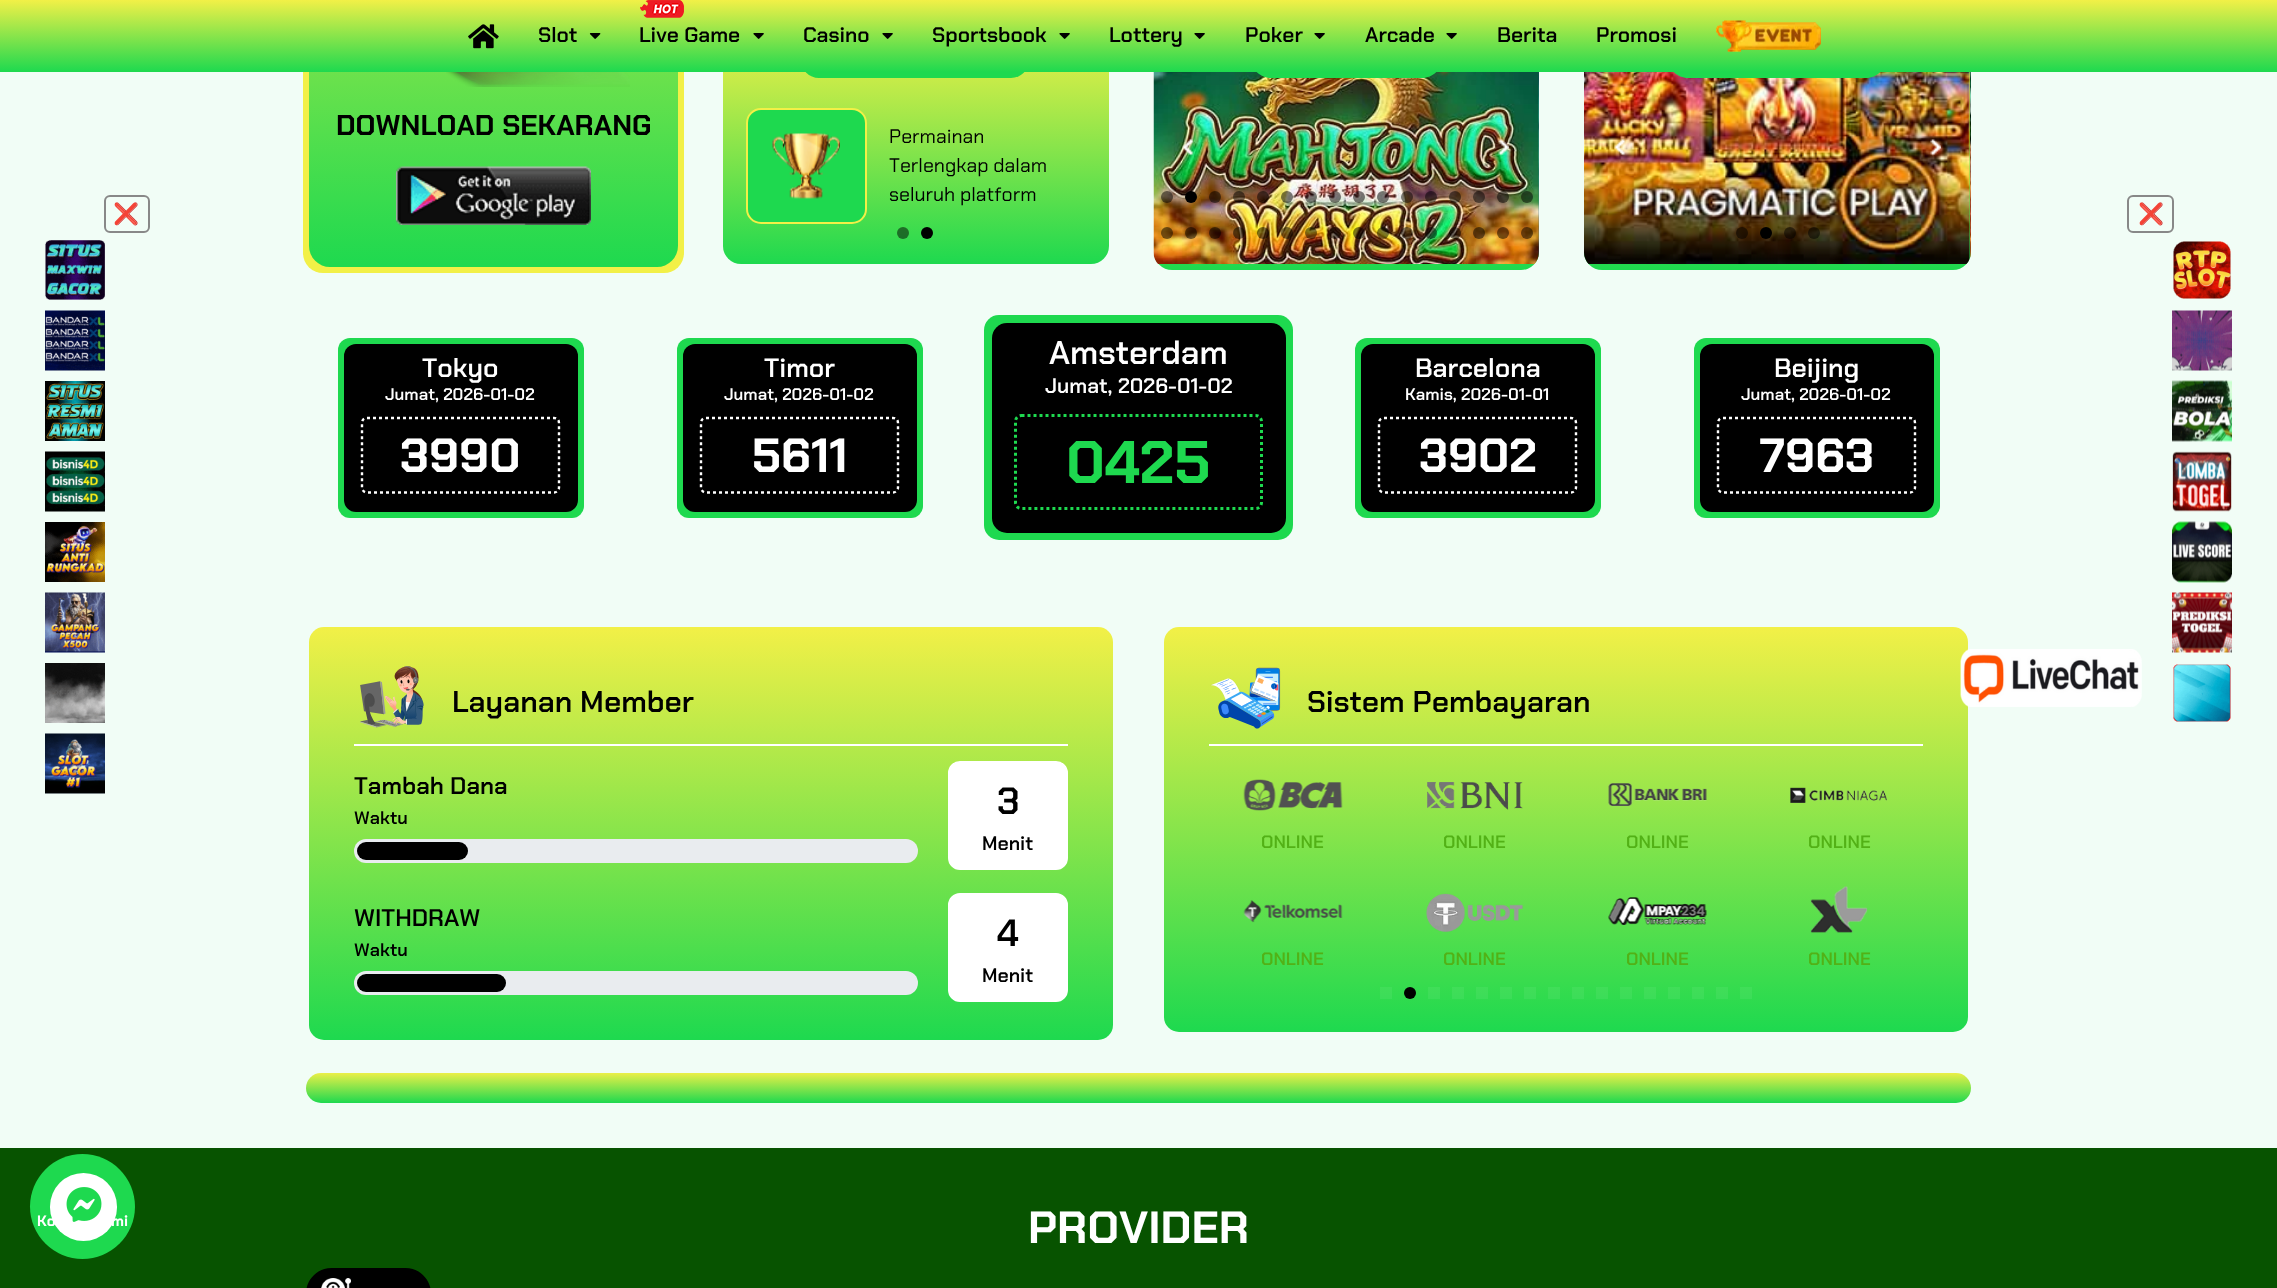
<svg xmlns="http://www.w3.org/2000/svg" width="2277" height="1288" viewBox="0 0 2277 1288">
  <style>*{font-kerning:none!important;font-variant-ligatures:none!important}</style>
  <defs>
    <linearGradient id="g1" gradientUnits="userSpaceOnUse" x1="494" y1="-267" x2="494" y2="267"><stop offset="0" stop-color="#f2f047"/><stop offset="1" stop-color="#1ed94f"/></linearGradient>
    <linearGradient id="g2" gradientUnits="userSpaceOnUse" x1="916" y1="31" x2="916" y2="264"><stop offset="0" stop-color="#f2f047"/><stop offset="1" stop-color="#1ed94f"/></linearGradient>
    <linearGradient id="g3" gradientUnits="userSpaceOnUse" x1="1346" y1="31" x2="1346" y2="270"><stop offset="0" stop-color="#f2f047"/><stop offset="1" stop-color="#1ed94f"/></linearGradient>
    <linearGradient id="g4" gradientUnits="userSpaceOnUse" x1="1778" y1="31" x2="1778" y2="270"><stop offset="0" stop-color="#f2f047"/><stop offset="1" stop-color="#1ed94f"/></linearGradient>
    <linearGradient id="g5" gradientUnits="userSpaceOnUse" x1="1139" y1="0" x2="1139" y2="72"><stop offset="0" stop-color="#f2f047"/><stop offset="1" stop-color="#1ed94f"/></linearGradient>
    <linearGradient id="g6" gradientUnits="userSpaceOnUse" x1="711" y1="627" x2="711" y2="1040"><stop offset="0" stop-color="#f2f047"/><stop offset="1" stop-color="#1ed94f"/></linearGradient>
    <linearGradient id="g7" gradientUnits="userSpaceOnUse" x1="1566" y1="627" x2="1566" y2="1032"><stop offset="0" stop-color="#f2f047"/><stop offset="1" stop-color="#1ed94f"/></linearGradient>
    <linearGradient id="g8" gradientUnits="userSpaceOnUse" x1="1139" y1="1072" x2="1139" y2="1103"><stop offset="0" stop-color="#f2f047"/><stop offset="1" stop-color="#1ed94f"/></linearGradient>
  </defs>
  <rect width="100%" height="100%" fill="#f1fdf6"/>
  <rect x="303" y="-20" width="381" height="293" rx="20" fill="#f2f047"/>
  <rect x="309" y="-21" width="369" height="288" rx="21" fill="url(#g1)"/>
  <rect x="723" y="32" width="386" height="232" rx="18" fill="url(#g2)"/>
  <path d="M801 32H1029V60C1029 70 1021 78 1011 78H819C809 78 801 70 801 60Z" fill="#1ed94f"/>
  <rect x="1154" y="32" width="385" height="238" rx="18" fill="url(#g3)"/>
  <image x="1153" y="72" width="386" height="192" href="img/17.png"/>
  <path d="M1251 32H1442V58C1442 69 1433 78 1422 78H1271C1260 78 1251 69 1251 58Z" fill="#1ed94f"/>
  <rect x="1584" y="32" width="387" height="238" rx="18" fill="url(#g4)"/>
  <image x="1584" y="252" width="1" height="6" href="img/23.png"/>
  <image x="1584" y="72" width="386" height="192" href="img/21.png"/>
  <path d="M1668 32H1886V58C1886 69 1877 78 1866 78H1688C1677 78 1668 69 1668 58Z" fill="#1ed94f"/>
  <path d="M0 0h2277v72H0z" fill="url(#g5)"/>
  <image x="468" y="24" width="31" height="25" href="img/1.png"/>
  <image x="589" y="33" width="12" height="6" href="img/2.png"/>
  <image x="640" y="0" width="44" height="18" href="img/3.png"/>
  <image x="753" y="33" width="11" height="6" href="img/4.png"/>
  <image x="882" y="33" width="11" height="6" href="img/4.png"/>
  <image x="1059" y="33" width="11" height="6" href="img/4.png"/>
  <image x="1194" y="33" width="11" height="6" href="img/4.png"/>
  <image x="1314" y="33" width="11" height="6" href="img/4.png"/>
  <image x="1446" y="33" width="11" height="6" href="img/4.png"/>
  <image x="1716" y="20" width="105" height="32" href="img/5.png"/>
  <rect x="105" y="196" width="44" height="36" rx="5" fill="none" stroke="#888" stroke-width="2"/>
  <image x="45" y="240" width="60" height="60" href="img/6.png"/>
  <image x="45" y="310" width="60" height="61" href="img/7.png"/>
  <image x="45" y="381" width="60" height="60" href="img/8.png"/>
  <image x="45" y="451" width="60" height="61" href="img/9.png"/>
  <image x="45" y="522" width="60" height="60" href="img/10.png"/>
  <image x="45" y="592" width="60" height="61" href="img/11.png"/>
  <image x="45" y="663" width="60" height="60" href="img/12.png"/>
  <image x="45" y="733" width="60" height="61" href="img/13.png"/>
  <image x="446" y="72" width="184" height="15" href="img/14.png"/>
  <image x="396" y="166" width="195" height="59" href="img/15.png"/>
  <rect x="747" y="109" width="119" height="114" rx="14" fill="#1ed94f" stroke="#f2f047" stroke-width="2"/>
  <image x="772" y="133" width="68" height="66" href="img/16.png"/>
  <circle cx="903" cy="233" r="6" fill="#00000080"/>
  <circle cx="927" cy="233" r="6" fill="#000"/>
  <image x="1538" y="72" width="1" height="186" href="img/18.png"/>
  <image x="1182" y="139" width="12" height="17" href="img/19.png"/>
  <image x="1498" y="139" width="11" height="17" href="img/20.png"/>
  <circle cx="1167" cy="197" r="6" fill="#00000080"/>
  <circle cx="1191" cy="197" r="6" fill="#000"/>
  <circle cx="1215" cy="197" r="6" fill="#00000080"/>
  <circle cx="1239" cy="197" r="6" fill="#00000080"/>
  <circle cx="1263" cy="197" r="6" fill="#00000080"/>
  <circle cx="1287" cy="197" r="6" fill="#00000080"/>
  <circle cx="1311" cy="197" r="6" fill="#00000080"/>
  <circle cx="1335" cy="197" r="6" fill="#00000080"/>
  <circle cx="1359" cy="197" r="6" fill="#00000080"/>
  <circle cx="1383" cy="197" r="6" fill="#00000080"/>
  <circle cx="1407" cy="197" r="6" fill="#00000080"/>
  <circle cx="1431" cy="197" r="6" fill="#00000080"/>
  <circle cx="1455" cy="197" r="6" fill="#00000080"/>
  <circle cx="1479" cy="197" r="6" fill="#00000080"/>
  <circle cx="1503" cy="197" r="6" fill="#00000080"/>
  <circle cx="1527" cy="197" r="6" fill="#00000080"/>
  <circle cx="1167" cy="233" r="6" fill="#00000080"/>
  <circle cx="1191" cy="233" r="6" fill="#00000080"/>
  <circle cx="1215" cy="233" r="6" fill="#00000080"/>
  <circle cx="1239" cy="233" r="6" fill="#00000080"/>
  <circle cx="1263" cy="233" r="6" fill="#00000080"/>
  <circle cx="1287" cy="233" r="6" fill="#00000080"/>
  <circle cx="1311" cy="233" r="6" fill="#00000080"/>
  <circle cx="1335" cy="233" r="6" fill="#00000080"/>
  <circle cx="1359" cy="233" r="6" fill="#00000080"/>
  <circle cx="1383" cy="233" r="6" fill="#00000080"/>
  <circle cx="1407" cy="233" r="6" fill="#00000080"/>
  <circle cx="1431" cy="233" r="6" fill="#00000080"/>
  <circle cx="1455" cy="233" r="6" fill="#00000080"/>
  <circle cx="1479" cy="233" r="6" fill="#00000080"/>
  <circle cx="1503" cy="233" r="6" fill="#00000080"/>
  <circle cx="1527" cy="233" r="6" fill="#00000080"/>
  <image x="1970" y="72" width="1" height="186" href="img/22.png"/>
  <image x="1614" y="139" width="12" height="17" href="img/24.png"/>
  <image x="1930" y="139" width="11" height="17" href="img/25.png"/>
  <circle cx="1742" cy="233" r="6" fill="#00000080"/>
  <circle cx="1766" cy="233" r="6" fill="#000"/>
  <circle cx="1790" cy="233" r="6" fill="#00000080"/>
  <circle cx="1814" cy="233" r="6" fill="#00000080"/>
  <rect x="338" y="338" width="246" height="180" rx="12" fill="#1ed94f"/>
  <rect x="344" y="344" width="234" height="168" rx="12" fill="#000"/>
  <path d="M367 418H554C557 418 559 420 559 423V487.5C559 490 557 492.5 554 492.5H367C364 492.5 362 490 362 487.5V423C362 420 364 418 367 418Z" fill="none" stroke="#fff" stroke-width="2.4" stroke-dasharray="3 3"/>
  <rect x="677" y="338" width="246" height="180" rx="12" fill="#1ed94f"/>
  <rect x="683" y="344" width="234" height="168" rx="12" fill="#000"/>
  <path d="M706 418H893C896 418 898 420 898 423V487.5C898 490 896 492.5 893 492.5H706C703 492.5 701 490 701 487.5V423C701 420 703 418 706 418Z" fill="none" stroke="#fff" stroke-width="2.4" stroke-dasharray="3 3"/>
  <rect x="984" y="315" width="309" height="225" rx="15" fill="#1ed94f"/>
  <rect x="992" y="323" width="294" height="210" rx="15" fill="#000"/>
  <path d="M1021.5 415.5H1255.5C1259 415.5 1261.5 418 1261.5 421.5V502.5C1261.5 506 1259 508.5 1255.5 508.5H1021.5C1018 508.5 1015.5 506 1015.5 502.5V421.5C1015.5 418 1018 415.5 1021.5 415.5Z" fill="none" stroke="#1ed94f" stroke-width="3" stroke-dasharray="3 3"/>
  <rect x="1355" y="338" width="246" height="180" rx="12" fill="#1ed94f"/>
  <rect x="1361" y="344" width="234" height="168" rx="12" fill="#000"/>
  <path d="M1384 418H1571C1574 418 1576 420 1576 423V487.5C1576 490 1574 492.5 1571 492.5H1384C1381 492.5 1379 490 1379 487.5V423C1379 420 1381 418 1384 418Z" fill="none" stroke="#fff" stroke-width="2.4" stroke-dasharray="3 3"/>
  <rect x="1694" y="338" width="246" height="180" rx="12" fill="#1ed94f"/>
  <rect x="1700" y="344" width="234" height="168" rx="12" fill="#000"/>
  <path d="M1723 418H1910C1913 418 1915 420 1915 423V487.5C1915 490 1913 492.5 1910 492.5H1723C1720 492.5 1718 490 1718 487.5V423C1718 420 1720 418 1723 418Z" fill="none" stroke="#fff" stroke-width="2.4" stroke-dasharray="3 3"/>
  <rect x="309" y="627" width="804" height="413" rx="15" fill="url(#g6)"/>
  <path d="M354 744h714v2H354z" fill="#fff"/>
  <image x="360" y="666" width="64" height="62" href="img/26.png"/>
  <rect x="354" y="839" width="564" height="24" rx="12" fill="#e9ecef"/>
  <rect x="357" y="842" width="111" height="18" rx="9" fill="#000"/>
  <rect x="949" y="762" width="118" height="107" rx="11" fill="#fff" stroke="#fff" stroke-width="2"/>
  <rect x="354" y="971" width="564" height="24" rx="12" fill="#e9ecef"/>
  <rect x="357" y="974" width="149" height="18" rx="9" fill="#000"/>
  <rect x="949" y="894" width="118" height="107" rx="11" fill="#fff" stroke="#fff" stroke-width="2"/>
  <rect x="1164" y="627" width="804" height="405" rx="15" fill="url(#g7)"/>
  <path d="M1209 744h714v2H1209z" fill="#fff"/>
  <image x="1210" y="667" width="71" height="62" href="img/27.png"/>
  <image x="1243" y="779" width="100" height="32" href="img/28.png"/>
  <image x="1427" y="782" width="96" height="28" href="img/29.png"/>
  <image x="1608" y="783" width="99" height="23" href="img/30.png"/>
  <image x="1790" y="787" width="97" height="16" href="img/31.png"/>
  <image x="1243" y="900" width="100" height="23" href="img/32.png"/>
  <image x="1426" y="893" width="97" height="39" href="img/33.png"/>
  <image x="1608" y="897" width="99" height="28" href="img/34.png"/>
  <image x="1810" y="886" width="58" height="47" href="img/35.png"/>
  <path d="M1380 987h12v12H1380z" fill="#ffffff0f"/>
  <circle cx="1410" cy="993" r="6" fill="#000"/>
  <path d="M1428 987h12v12H1428z" fill="#ffffff0f"/>
  <path d="M1452 987h12v12H1452z" fill="#ffffff0f"/>
  <path d="M1476 987h12v12H1476z" fill="#ffffff0f"/>
  <path d="M1500 987h12v12H1500z" fill="#ffffff0f"/>
  <path d="M1524 987h12v12H1524z" fill="#ffffff0f"/>
  <path d="M1548 987h12v12H1548z" fill="#ffffff0f"/>
  <path d="M1572 987h12v12H1572z" fill="#ffffff0f"/>
  <path d="M1596 987h12v12H1596z" fill="#ffffff0f"/>
  <path d="M1620 987h12v12H1620z" fill="#ffffff0f"/>
  <path d="M1644 987h12v12H1644z" fill="#ffffff0f"/>
  <path d="M1668 987h12v12H1668z" fill="#ffffff0f"/>
  <path d="M1692 987h12v12H1692z" fill="#ffffff0f"/>
  <path d="M1716 987h12v12H1716z" fill="#ffffff0f"/>
  <path d="M1740 987h12v12H1740z" fill="#ffffff0f"/>
  <rect x="306" y="1073" width="1665" height="30" rx="15" fill="url(#g8)"/>
  <rect x="2128" y="196" width="45" height="36" rx="5" fill="none" stroke="#888" stroke-width="2"/>
  <image x="2173" y="241" width="58" height="58" href="img/36.png"/>
  <image x="2172" y="310" width="60" height="61" href="img/37.png"/>
  <image x="2172" y="380" width="60" height="62" href="img/38.png"/>
  <image x="2172" y="451" width="60" height="61" href="img/39.png"/>
  <image x="2172" y="521" width="60" height="62" href="img/40.png"/>
  <image x="2172" y="592" width="60" height="61" href="img/41.png"/>
  <image x="2173" y="664" width="58" height="58" href="img/42.png"/>
  <image x="1960" y="649" width="182" height="58" href="img/43.png"/>
  <path d="M0 1148h2277v140H0z" fill="#075300"/>
  <circle cx="82.5" cy="1206.5" r="52.5" fill="#1ed94f"/>
  <rect x="50" y="1173" width="67" height="68" rx="33.5" fill="#fff"/>
  <image x="66" y="1187" width="36" height="35" href="img/44.png"/>
  <path d="M331.5 1268H405.5C419.5 1268 431 1279.5 431 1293.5V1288.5C431 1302.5 419.5 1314 405.5 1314H306V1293.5C306 1279.5 317.5 1268 331.5 1268Z" fill="#000"/>
  <image x="321" y="1278" width="30" height="10" href="img/45.png"/>
  <g font-family="Chakra Petch" font-size="21" font-weight="600" fill="#000">
    <text x="538" y="42">Slot</text>
    <text x="639" y="42">Live Game</text>
    <text x="803" y="42">Casino</text>
    <text x="932" y="42">Sportsbook</text>
    <text x="1109" y="42">Lottery</text>
    <text x="1245" y="42">Poker</text>
    <text x="1365" y="42">Arcade</text>
    <text x="1497" y="42">Berita</text>
    <text x="1596" y="42">Promosi</text>
  </g>
  <text x="113" y="221" font-family="Noto Color Emoji" font-size="21" fill="#000">❌</text>
  <text x="336" y="135" font-family="Chakra Petch" font-size="28.5" font-weight="bold" fill="#000">DOWNLOAD SEKARANG</text>
  <g font-family="Chakra Petch" font-size="19.5" fill="#000">
    <text x="889" y="143">Permainan</text>
    <text x="889" y="172">Terlengkap dalam</text>
    <text x="889" y="201">seluruh platform</text>
  </g>
  <text x="422" y="377" font-family="Chakra Petch" font-size="26.5" font-weight="600" fill="#fff">Tokyo</text>
  <text x="385" y="400" font-family="Chakra Petch" font-size="16.75" font-weight="600" fill="#fff">Jumat, 2026-01-02</text>
  <text x="400" y="472" font-family="Chakra Petch" font-size="48" font-weight="bold" fill="#fff">3990</text>
  <text x="764" y="377" font-family="Chakra Petch" font-size="26.5" font-weight="600" fill="#fff">Timor</text>
  <text x="724" y="400" font-family="Chakra Petch" font-size="16.75" font-weight="600" fill="#fff">Jumat, 2026-01-02</text>
  <text x="752" y="472" font-family="Chakra Petch" font-size="48" font-weight="bold" fill="#fff">5611</text>
  <text x="1049" y="364" font-family="Chakra Petch" font-size="33" font-weight="600" fill="#fff">Amsterdam</text>
  <text x="1045" y="393" font-family="Chakra Petch" font-size="21" font-weight="600" fill="#fff">Jumat, 2026-01-02</text>
  <text x="1066" y="483" font-family="Chakra Petch" font-size="60" font-weight="bold" fill="#1ed94f">0425</text>
  <text x="1415" y="377" font-family="Chakra Petch" font-size="26.5" font-weight="600" fill="#fff">Barcelona</text>
  <text x="1405" y="400" font-family="Chakra Petch" font-size="16.75" font-weight="600" fill="#fff">Kamis, 2026-01-01</text>
  <text x="1419" y="472" font-family="Chakra Petch" font-size="48" font-weight="bold" fill="#fff">3902</text>
  <text x="1774" y="377" font-family="Chakra Petch" font-size="26.5" font-weight="600" fill="#fff">Beijing</text>
  <text x="1741" y="400" font-family="Chakra Petch" font-size="16.75" font-weight="600" fill="#fff">Jumat, 2026-01-02</text>
  <text x="1760" y="472" font-family="Chakra Petch" font-size="48" font-weight="bold" fill="#fff">7963</text>
  <text x="452" y="712" font-family="Chakra Petch" font-size="30" font-weight="600" fill="#000">Layanan Member</text>
  <text x="354" y="794" font-family="Chakra Petch" font-size="24" font-weight="600" fill="#000">Tambah Dana</text>
  <text x="354" y="824" font-family="Chakra Petch" font-size="18" font-weight="600" fill="#000">Waktu</text>
  <text x="997" y="814" font-family="Chakra Petch" font-size="38" font-weight="600" fill="#000">3</text>
  <text x="982" y="850" font-family="Chakra Petch" font-size="19.5" font-weight="600" fill="#000">Menit</text>
  <text x="354" y="926" font-family="Chakra Petch" font-size="24" font-weight="600" fill="#000">WITHDRAW</text>
  <text x="354" y="956" font-family="Chakra Petch" font-size="18" font-weight="600" fill="#000">Waktu</text>
  <text x="997" y="946" font-family="Chakra Petch" font-size="38" font-weight="600" fill="#000">4</text>
  <text x="982" y="982" font-family="Chakra Petch" font-size="19.5" font-weight="600" fill="#000">Menit</text>
  <text x="1307" y="712" font-family="Chakra Petch" font-size="30" font-weight="600" fill="#000">Sistem Pembayaran</text>
  <g font-family="Chakra Petch" font-size="18" font-weight="600" fill="#52b116">
    <text x="1261" y="848">ONLINE</text>
    <text x="1443" y="848">ONLINE</text>
    <text x="1626" y="848">ONLINE</text>
    <text x="1808" y="848">ONLINE</text>
    <text x="1261" y="965">ONLINE</text>
    <text x="1443" y="965">ONLINE</text>
    <text x="1626" y="965">ONLINE</text>
    <text x="1808" y="965">ONLINE</text>
  </g>
  <text x="2138" y="221" font-family="Noto Color Emoji" font-size="21" fill="#000">❌</text>
  <g font-family="Chakra Petch" font-size="15" font-weight="bold" fill="#fff">
    <text x="37" y="1226">Ko</text>
    <text x="111" y="1226">mi</text>
  </g>
  <text x="1028" y="1243" font-family="Chakra Petch" font-size="45" font-weight="bold" fill="#fff">PROVIDER</text>
</svg>
